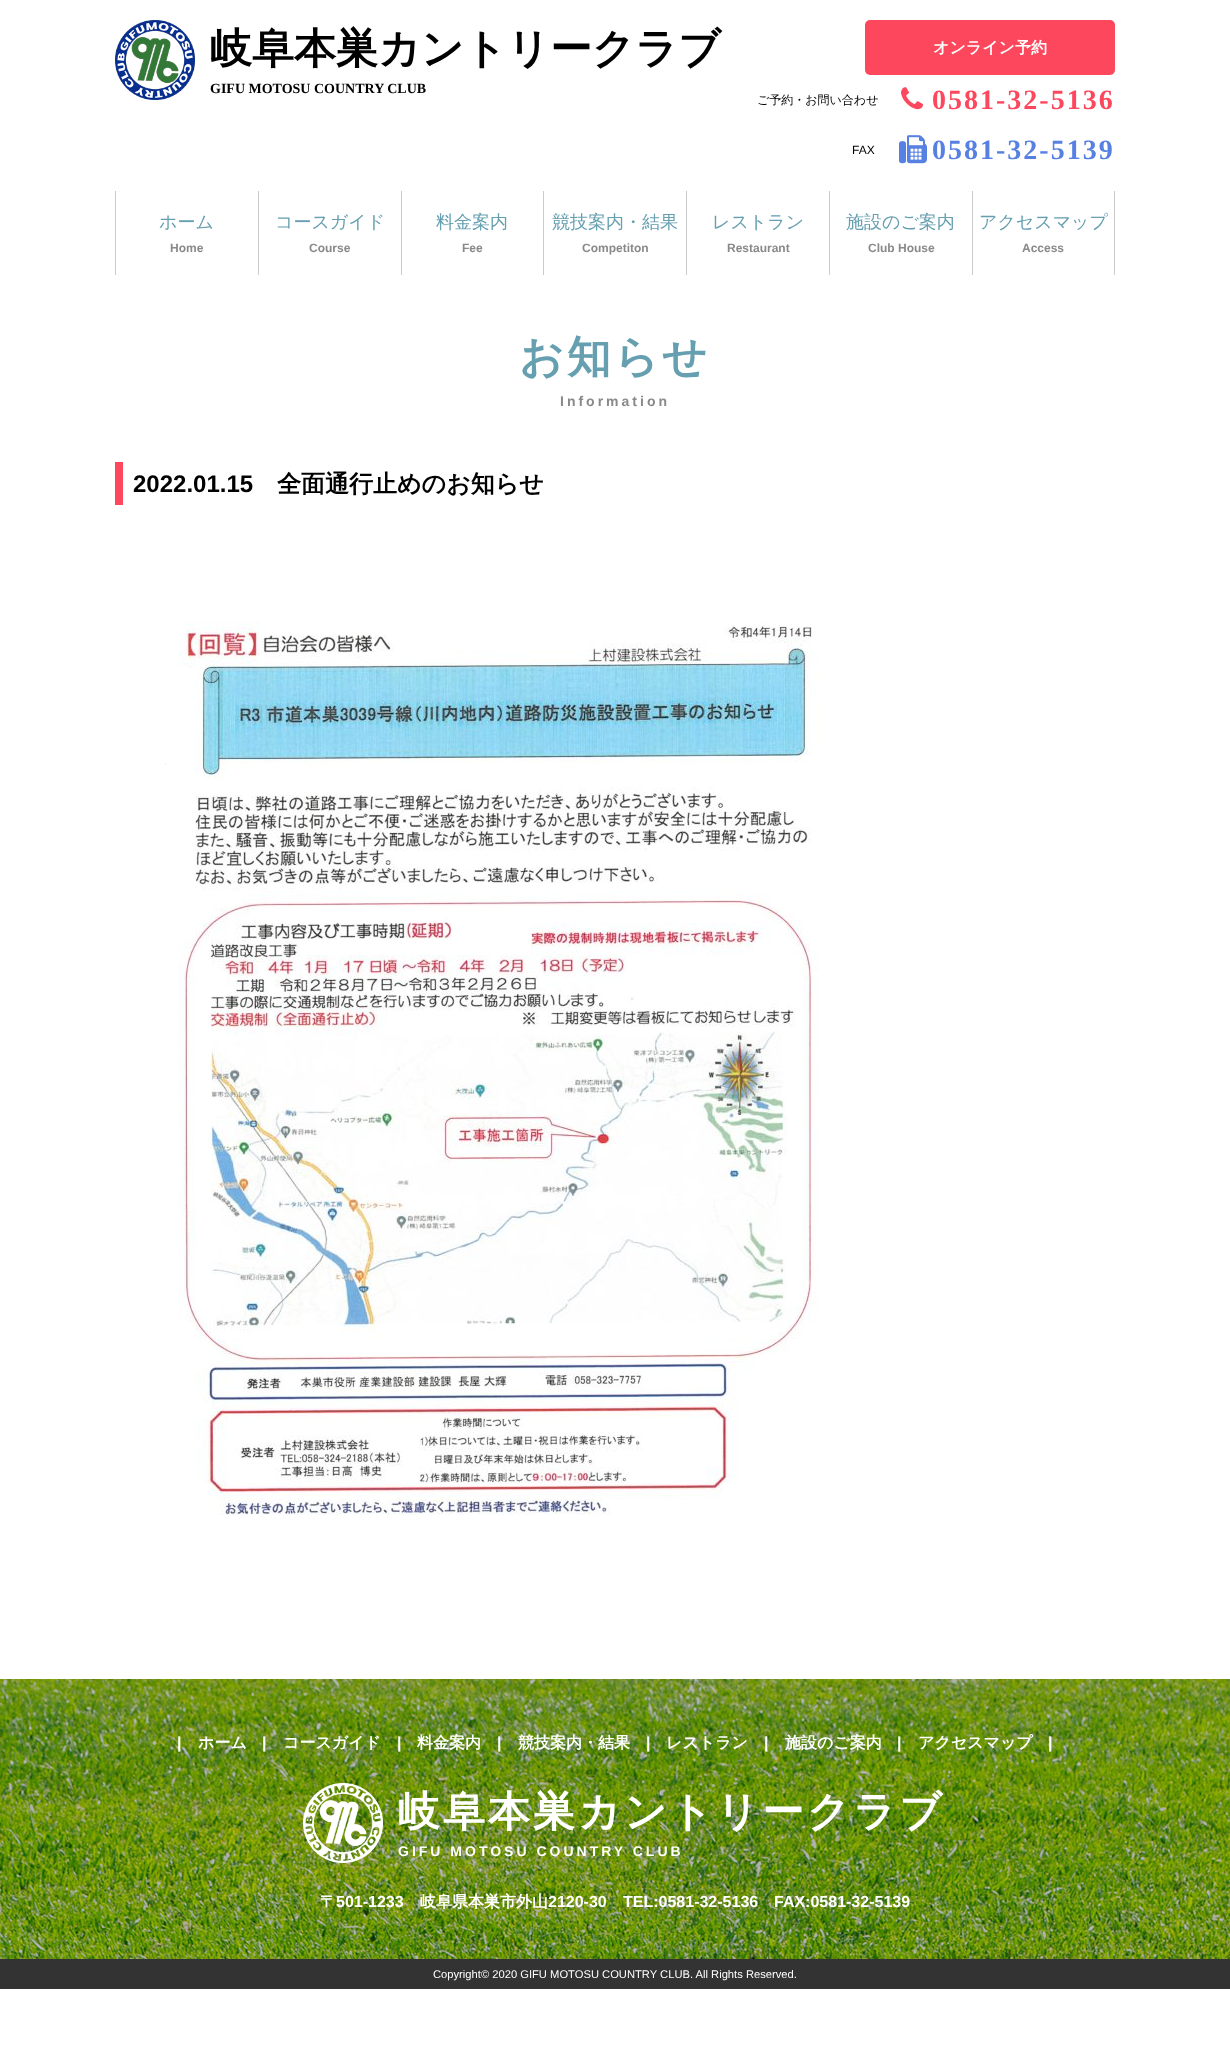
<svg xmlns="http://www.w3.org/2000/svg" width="1230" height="2057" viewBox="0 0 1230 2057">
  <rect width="100%" height="100%" fill="#fff"/>
  <image x="115" y="20" width="80" height="80" href="img/1.png"/>
  <rect x="865" y="20" width="250" height="55" rx="5" fill="#fd475d"/>
  <image x="901" y="87" width="22" height="23" href="img/2.png"/>
  <image x="899" y="135" width="28" height="29" href="img/3.png"/>
  <path d="M115 191h1v84H115z" fill="#ccc"/>
  <path d="M258 191h1v84H258z" fill="#ccc"/>
  <path d="M401 191h1v84H401z" fill="#ccc"/>
  <path d="M543 191h1v84H543z" fill="#ccc"/>
  <path d="M686 191h1v84H686z" fill="#ccc"/>
  <path d="M829 191h1v84H829z" fill="#ccc"/>
  <path d="M1114 191h1v84H1114z" fill="#ccc"/>
  <path d="M972 191h1v84H972z" fill="#ccc"/>
  <path d="M115 462h8v43H115z" fill="#fd475d"/>
  <image x="164" y="619" width="655" height="896" href="img/4.png"/>
  <image x="0" y="1679" width="1230" height="280" href="img/5.png"/>
  <image x="303" y="1783" width="80" height="80" href="img/6.png"/>
  <path d="M0 1959h1230v30H0z" fill="#333"/>
  <text x="210" y="63" font-family="WenQuanYi Zen Hei" font-size="42" font-weight="bold" fill="#000">岐阜本巣カントリークラブ</text>
  <text x="210" y="93" font-family="Liberation Serif" font-size="14" font-weight="bold" fill="#000">GIFU MOTOSU COUNTRY CLUB</text>
  <text x="933" y="53" font-family="WenQuanYi Zen Hei" font-size="16" font-weight="bold" fill="#fff">オンライン予約</text>
  <text x="757" y="104" font-family="WenQuanYi Zen Hei" font-size="12" font-weight="500" fill="#000">ご予約・お問い合わせ</text>
  <text x="932" y="109" font-family="Liberation Serif" font-size="28" font-weight="bold" letter-spacing="2" fill="#fd475d">0581-32-5136</text>
  <text x="852" y="154" font-family="Liberation Sans" font-size="12" fill="#000">FAX</text>
  <text x="932" y="159" font-family="Liberation Serif" font-size="28" font-weight="bold" letter-spacing="2" fill="#5780e3">0581-32-5139</text>
  <text x="159" y="228" font-family="WenQuanYi Zen Hei" font-size="18" font-weight="500" fill="#659fb0">ホーム</text>
  <text x="170" y="252" font-family="Liberation Sans" font-size="12" font-weight="bold" fill="#898989">Home</text>
  <text x="275" y="228" font-family="WenQuanYi Zen Hei" font-size="18" font-weight="500" fill="#659fb0">コースガイド</text>
  <text x="309" y="252" font-family="Liberation Sans" font-size="12" font-weight="bold" fill="#898989">Course</text>
  <text x="436" y="228" font-family="WenQuanYi Zen Hei" font-size="18" font-weight="500" fill="#659fb0">料金案内</text>
  <text x="462" y="252" font-family="Liberation Sans" font-size="12" font-weight="bold" fill="#898989">Fee</text>
  <text x="552" y="228" font-family="WenQuanYi Zen Hei" font-size="18" font-weight="500" fill="#659fb0">競技案内・結果</text>
  <text x="582" y="252" font-family="Liberation Sans" font-size="12" font-weight="bold" fill="#898989">Competiton</text>
  <text x="712" y="228" font-family="WenQuanYi Zen Hei" font-size="18" font-weight="500" fill="#659fb0">レストラン</text>
  <text x="727" y="252" font-family="Liberation Sans" font-size="12" font-weight="bold" fill="#898989">Restaurant</text>
  <text x="846" y="228" font-family="WenQuanYi Zen Hei" font-size="18" font-weight="500" fill="#659fb0">施設のご案内</text>
  <text x="868" y="252" font-family="Liberation Sans" font-size="12" font-weight="bold" fill="#898989">Club House</text>
  <text x="979" y="228" font-family="WenQuanYi Zen Hei" font-size="18" font-weight="500" fill="#659fb0">アクセスマップ</text>
  <text x="1022" y="252" font-family="Liberation Sans" font-size="12" font-weight="bold" fill="#898989">Access</text>
  <text x="519" y="372" font-family="WenQuanYi Zen Hei" font-size="44" font-weight="bold" letter-spacing="3" fill="#659fb0">お知らせ</text>
  <text x="560" y="406" font-family="Liberation Sans" font-size="14" font-weight="bold" letter-spacing="3" fill="#898989">Information</text>
  <text x="133" y="492" font-family="Liberation Sans" font-size="24" font-weight="bold" fill="#000">2022.01.15</text>
  <text x="277" y="492" font-family="WenQuanYi Zen Hei" font-size="24" font-weight="bold" fill="#000">全面通行止めのお知らせ</text>
  <text x="177" y="1748" font-family="Liberation Sans" font-size="16" font-weight="bold" fill="#fff">|</text>
  <text x="198" y="1748" font-family="WenQuanYi Zen Hei" font-size="16" font-weight="bold" fill="#fff">ホーム</text>
  <text x="262" y="1748" font-family="Liberation Sans" font-size="16" font-weight="bold" fill="#fff">|</text>
  <text x="283" y="1748" font-family="WenQuanYi Zen Hei" font-size="16" font-weight="bold" fill="#fff">コースガイド</text>
  <text x="397" y="1748" font-family="Liberation Sans" font-size="16" font-weight="bold" fill="#fff">|</text>
  <text x="417" y="1748" font-family="WenQuanYi Zen Hei" font-size="16" font-weight="bold" fill="#fff">料金案内</text>
  <text x="497" y="1748" font-family="Liberation Sans" font-size="16" font-weight="bold" fill="#fff">|</text>
  <text x="518" y="1748" font-family="WenQuanYi Zen Hei" font-size="16" font-weight="bold" fill="#fff">競技案内・結果</text>
  <text x="646" y="1748" font-family="Liberation Sans" font-size="16" font-weight="bold" fill="#fff">|</text>
  <text x="666" y="1748" font-family="WenQuanYi Zen Hei" font-size="16" font-weight="bold" fill="#fff">レストラン</text>
  <text x="764" y="1748" font-family="Liberation Sans" font-size="16" font-weight="bold" fill="#fff">|</text>
  <text x="785" y="1748" font-family="WenQuanYi Zen Hei" font-size="16" font-weight="bold" fill="#fff">施設のご案内</text>
  <text x="897" y="1748" font-family="Liberation Sans" font-size="16" font-weight="bold" fill="#fff">|</text>
  <text x="918" y="1748" font-family="WenQuanYi Zen Hei" font-size="16" font-weight="bold" fill="#fff">アクセスマップ</text>
  <text x="1048" y="1748" font-family="Liberation Sans" font-size="16" font-weight="bold" fill="#fff">|</text>
  <text x="398" y="1826" font-family="WenQuanYi Zen Hei" font-size="42" font-weight="bold" letter-spacing="3" fill="#fff">岐阜本巣カントリークラブ</text>
  <text x="398" y="1856" font-family="Liberation Sans" font-size="14" font-weight="bold" letter-spacing="3" fill="#fff">GIFU MOTOSU COUNTRY CLUB</text>
  <text x="320" y="1907" font-family="WenQuanYi Zen Hei" font-size="16" font-weight="bold" fill="#fff">〒</text>
  <text x="336" y="1907" font-family="Liberation Sans" font-size="16" font-weight="bold" fill="#fff">501-1233</text>
  <text x="420" y="1907" font-family="WenQuanYi Zen Hei" font-size="16" font-weight="bold" fill="#fff">岐阜県本巣市外山</text>
  <g font-family="Liberation Sans" font-size="16" font-weight="bold" fill="#fff">
    <text x="548" y="1907">2120-30</text>
    <text x="623" y="1907">TEL:0581-32-5136</text>
    <text x="774" y="1907">FAX:0581-32-5139</text>
  </g>
  <text x="433" y="1978" font-family="Liberation Sans" font-size="11.2" fill="#fff">Copyright© 2020 GIFU MOTOSU COUNTRY CLUB. All Rights Reserved.</text>
</svg>
